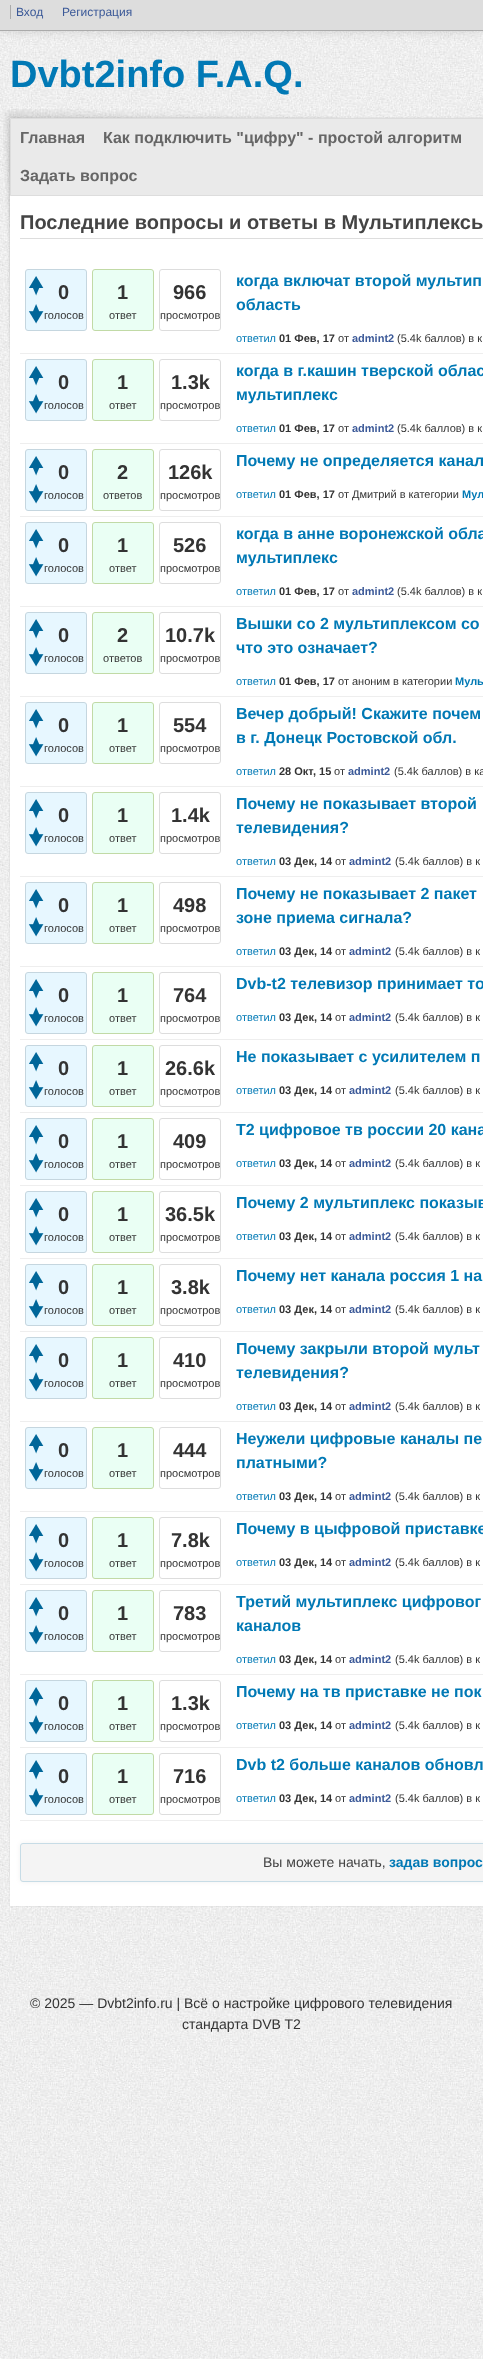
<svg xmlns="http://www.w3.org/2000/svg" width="483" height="2359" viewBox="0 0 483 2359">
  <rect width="100%" height="100%" fill="#fff"/>
  <image x="0" y="31" width="483" height="2328" href="img/1.png"/>
  <path d="M0 0h483v31H0z" fill="#00000026" filter="blur(5px)"/>
  <path d="M0 0h483v30H0z" fill="#ddd"/>
  <path d="M0 30h483v1H0z" fill="#aaa"/>
  <path d="M10 5h1v14H10z" fill="#aaa"/>
  <image x="3" y="109" width="335" height="239" href="img/2.png"/>
  <path d="M10 118h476v1788H10z" fill="#0000001a" filter="blur(1px)"/>
  <path d="M10 196h473v1710H10z" fill="#fff"/>
  <path d="M10.5 118.5h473v77H10.5z" fill="#eaeaea" stroke="#ddd"/>
  <path d="M20 238h463v1H20z" fill="#ddd"/>
  <path d="M20 353h463v1H20z" fill="#eee"/>
  <rect x="25.5" y="269.5" width="61" height="61" rx="2.5" fill="#e7f7ff" stroke="#c5d6df"/>
  <image x="29" y="276" width="15" height="20" href="img/3.png"/>
  <image x="28" y="304" width="16" height="20" href="img/4.png"/>
  <rect x="92.5" y="269.5" width="61" height="61" rx="2.5" fill="#eafff4" stroke="#c1daa6"/>
  <rect x="159.5" y="269.5" width="61" height="61" rx="2.5" fill="none" stroke="#ddd"/>
  <path d="M20 443h463v1H20z" fill="#eee"/>
  <rect x="25.5" y="359.5" width="61" height="61" rx="2.5" fill="#e7f7ff" stroke="#c5d6df"/>
  <image x="29" y="366" width="15" height="20" href="img/3.png"/>
  <image x="28" y="394" width="16" height="20" href="img/4.png"/>
  <rect x="92.5" y="359.5" width="61" height="61" rx="2.5" fill="#eafff4" stroke="#c1daa6"/>
  <rect x="159.5" y="359.5" width="61" height="61" rx="2.5" fill="none" stroke="#ddd"/>
  <path d="M20 516h463v1H20z" fill="#eee"/>
  <rect x="25.5" y="449.5" width="61" height="61" rx="2.5" fill="#e7f7ff" stroke="#c5d6df"/>
  <image x="29" y="456" width="15" height="20" href="img/3.png"/>
  <image x="28" y="484" width="16" height="20" href="img/4.png"/>
  <rect x="92.5" y="449.5" width="61" height="61" rx="2.5" fill="#eafff4" stroke="#c1daa6"/>
  <rect x="159.5" y="449.5" width="61" height="61" rx="2.5" fill="none" stroke="#ddd"/>
  <path d="M20 606h463v1H20z" fill="#eee"/>
  <rect x="25.5" y="522.5" width="61" height="61" rx="2.5" fill="#e7f7ff" stroke="#c5d6df"/>
  <image x="29" y="529" width="15" height="20" href="img/3.png"/>
  <image x="28" y="557" width="16" height="20" href="img/4.png"/>
  <rect x="92.5" y="522.5" width="61" height="61" rx="2.5" fill="#eafff4" stroke="#c1daa6"/>
  <rect x="159.5" y="522.5" width="61" height="61" rx="2.5" fill="none" stroke="#ddd"/>
  <path d="M20 696h463v1H20z" fill="#eee"/>
  <rect x="25.5" y="612.5" width="61" height="61" rx="2.5" fill="#e7f7ff" stroke="#c5d6df"/>
  <image x="29" y="619" width="15" height="20" href="img/3.png"/>
  <image x="28" y="647" width="16" height="20" href="img/4.png"/>
  <rect x="92.5" y="612.5" width="61" height="61" rx="2.5" fill="#eafff4" stroke="#c1daa6"/>
  <rect x="159.5" y="612.5" width="61" height="61" rx="2.5" fill="none" stroke="#ddd"/>
  <path d="M20 786h463v1H20z" fill="#eee"/>
  <rect x="25.5" y="702.5" width="61" height="61" rx="2.5" fill="#e7f7ff" stroke="#c5d6df"/>
  <image x="29" y="709" width="15" height="20" href="img/3.png"/>
  <image x="28" y="737" width="16" height="20" href="img/4.png"/>
  <rect x="92.5" y="702.5" width="61" height="61" rx="2.5" fill="#eafff4" stroke="#c1daa6"/>
  <rect x="159.5" y="702.5" width="61" height="61" rx="2.5" fill="none" stroke="#ddd"/>
  <path d="M20 876h463v1H20z" fill="#eee"/>
  <rect x="25.5" y="792.5" width="61" height="61" rx="2.5" fill="#e7f7ff" stroke="#c5d6df"/>
  <image x="29" y="799" width="15" height="20" href="img/3.png"/>
  <image x="28" y="827" width="16" height="20" href="img/4.png"/>
  <rect x="92.5" y="792.5" width="61" height="61" rx="2.5" fill="#eafff4" stroke="#c1daa6"/>
  <rect x="159.5" y="792.5" width="61" height="61" rx="2.5" fill="none" stroke="#ddd"/>
  <path d="M20 966h463v1H20z" fill="#eee"/>
  <rect x="25.5" y="882.5" width="61" height="61" rx="2.5" fill="#e7f7ff" stroke="#c5d6df"/>
  <image x="29" y="889" width="15" height="20" href="img/3.png"/>
  <image x="28" y="917" width="16" height="20" href="img/4.png"/>
  <rect x="92.5" y="882.5" width="61" height="61" rx="2.5" fill="#eafff4" stroke="#c1daa6"/>
  <rect x="159.5" y="882.5" width="61" height="61" rx="2.5" fill="none" stroke="#ddd"/>
  <path d="M20 1039h463v1H20z" fill="#eee"/>
  <rect x="25.5" y="972.5" width="61" height="61" rx="2.5" fill="#e7f7ff" stroke="#c5d6df"/>
  <image x="29" y="979" width="15" height="20" href="img/3.png"/>
  <image x="28" y="1007" width="16" height="20" href="img/4.png"/>
  <rect x="92.5" y="972.5" width="61" height="61" rx="2.5" fill="#eafff4" stroke="#c1daa6"/>
  <rect x="159.5" y="972.5" width="61" height="61" rx="2.5" fill="none" stroke="#ddd"/>
  <path d="M20 1112h463v1H20z" fill="#eee"/>
  <rect x="25.5" y="1045.5" width="61" height="61" rx="2.5" fill="#e7f7ff" stroke="#c5d6df"/>
  <image x="29" y="1052" width="15" height="20" href="img/3.png"/>
  <image x="28" y="1080" width="16" height="20" href="img/4.png"/>
  <rect x="92.5" y="1045.5" width="61" height="61" rx="2.5" fill="#eafff4" stroke="#c1daa6"/>
  <rect x="159.5" y="1045.5" width="61" height="61" rx="2.5" fill="none" stroke="#ddd"/>
  <path d="M20 1185h463v1H20z" fill="#eee"/>
  <rect x="25.5" y="1118.5" width="61" height="61" rx="2.5" fill="#e7f7ff" stroke="#c5d6df"/>
  <image x="29" y="1125" width="15" height="20" href="img/3.png"/>
  <image x="28" y="1153" width="16" height="20" href="img/4.png"/>
  <rect x="92.5" y="1118.5" width="61" height="61" rx="2.5" fill="#eafff4" stroke="#c1daa6"/>
  <rect x="159.5" y="1118.5" width="61" height="61" rx="2.5" fill="none" stroke="#ddd"/>
  <path d="M20 1258h463v1H20z" fill="#eee"/>
  <rect x="25.5" y="1191.5" width="61" height="61" rx="2.5" fill="#e7f7ff" stroke="#c5d6df"/>
  <image x="29" y="1198" width="15" height="20" href="img/3.png"/>
  <image x="28" y="1226" width="16" height="20" href="img/4.png"/>
  <rect x="92.5" y="1191.5" width="61" height="61" rx="2.5" fill="#eafff4" stroke="#c1daa6"/>
  <rect x="159.5" y="1191.5" width="61" height="61" rx="2.5" fill="none" stroke="#ddd"/>
  <path d="M20 1331h463v1H20z" fill="#eee"/>
  <rect x="25.5" y="1264.5" width="61" height="61" rx="2.5" fill="#e7f7ff" stroke="#c5d6df"/>
  <image x="29" y="1271" width="15" height="20" href="img/3.png"/>
  <image x="28" y="1299" width="16" height="20" href="img/4.png"/>
  <rect x="92.5" y="1264.5" width="61" height="61" rx="2.5" fill="#eafff4" stroke="#c1daa6"/>
  <rect x="159.5" y="1264.5" width="61" height="61" rx="2.5" fill="none" stroke="#ddd"/>
  <path d="M20 1421h463v1H20z" fill="#eee"/>
  <rect x="25.5" y="1337.5" width="61" height="61" rx="2.5" fill="#e7f7ff" stroke="#c5d6df"/>
  <image x="29" y="1344" width="15" height="20" href="img/3.png"/>
  <image x="28" y="1372" width="16" height="20" href="img/4.png"/>
  <rect x="92.5" y="1337.5" width="61" height="61" rx="2.5" fill="#eafff4" stroke="#c1daa6"/>
  <rect x="159.5" y="1337.5" width="61" height="61" rx="2.5" fill="none" stroke="#ddd"/>
  <path d="M20 1511h463v1H20z" fill="#eee"/>
  <rect x="25.5" y="1427.5" width="61" height="61" rx="2.5" fill="#e7f7ff" stroke="#c5d6df"/>
  <image x="29" y="1434" width="15" height="20" href="img/3.png"/>
  <image x="28" y="1462" width="16" height="20" href="img/4.png"/>
  <rect x="92.5" y="1427.5" width="61" height="61" rx="2.5" fill="#eafff4" stroke="#c1daa6"/>
  <rect x="159.5" y="1427.5" width="61" height="61" rx="2.5" fill="none" stroke="#ddd"/>
  <path d="M20 1584h463v1H20z" fill="#eee"/>
  <rect x="25.5" y="1517.5" width="61" height="61" rx="2.5" fill="#e7f7ff" stroke="#c5d6df"/>
  <image x="29" y="1524" width="15" height="20" href="img/3.png"/>
  <image x="28" y="1552" width="16" height="20" href="img/4.png"/>
  <rect x="92.5" y="1517.5" width="61" height="61" rx="2.5" fill="#eafff4" stroke="#c1daa6"/>
  <rect x="159.5" y="1517.5" width="61" height="61" rx="2.5" fill="none" stroke="#ddd"/>
  <path d="M20 1674h463v1H20z" fill="#eee"/>
  <rect x="25.5" y="1590.5" width="61" height="61" rx="2.5" fill="#e7f7ff" stroke="#c5d6df"/>
  <image x="29" y="1597" width="15" height="20" href="img/3.png"/>
  <image x="28" y="1625" width="16" height="20" href="img/4.png"/>
  <rect x="92.5" y="1590.5" width="61" height="61" rx="2.5" fill="#eafff4" stroke="#c1daa6"/>
  <rect x="159.5" y="1590.5" width="61" height="61" rx="2.5" fill="none" stroke="#ddd"/>
  <path d="M20 1747h463v1H20z" fill="#eee"/>
  <rect x="25.5" y="1680.5" width="61" height="61" rx="2.5" fill="#e7f7ff" stroke="#c5d6df"/>
  <image x="29" y="1687" width="15" height="20" href="img/3.png"/>
  <image x="28" y="1715" width="16" height="20" href="img/4.png"/>
  <rect x="92.5" y="1680.5" width="61" height="61" rx="2.5" fill="#eafff4" stroke="#c1daa6"/>
  <rect x="159.5" y="1680.5" width="61" height="61" rx="2.5" fill="none" stroke="#ddd"/>
  <path d="M20 1820h463v1H20z" fill="#eee"/>
  <rect x="25.5" y="1753.5" width="61" height="61" rx="2.5" fill="#e7f7ff" stroke="#c5d6df"/>
  <image x="29" y="1760" width="15" height="20" href="img/3.png"/>
  <image x="28" y="1788" width="16" height="20" href="img/4.png"/>
  <rect x="92.5" y="1753.5" width="61" height="61" rx="2.5" fill="#eafff4" stroke="#c1daa6"/>
  <rect x="159.5" y="1753.5" width="61" height="61" rx="2.5" fill="none" stroke="#ddd"/>
  <rect x="20" y="1843" width="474" height="39" rx="3" fill="#0000000d" filter="blur(2.5px)"/>
  <rect x="20.5" y="1843.5" width="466" height="38" rx="2.5" fill="#f4f4f4" stroke="#c7dce6"/>
  <g font-family="Liberation Sans" font-size="12" fill="#3b5998">
    <text x="16" y="16">Вход</text>
    <text x="62" y="16">Регистрация</text>
  </g>
  <text x="10" y="87" font-family="Liberation Sans" font-size="38" font-weight="bold" fill="#0179b5">Dvbt2info F.A.Q.</text>
  <g font-family="Liberation Sans" font-size="16" font-weight="bold" fill="#666">
    <text x="20" y="143">Главная</text>
    <text x="103" y="143">Как подключить "цифру" - простой алгоритм</text>
    <text x="20" y="181">Задать вопрос</text>
  </g>
  <text x="20" y="229" font-family="Liberation Sans" font-size="20" font-weight="bold" fill="#444">Последние вопросы и ответы в Мультиплексы</text>
  <text x="58" y="299" font-family="Liberation Sans" font-size="20" font-weight="bold" fill="#333">0</text>
  <text x="44" y="319" font-family="Liberation Sans" font-size="11" fill="#333">голосов</text>
  <text x="117" y="299" font-family="Liberation Sans" font-size="20" font-weight="bold" fill="#333">1</text>
  <text x="109" y="319" font-family="Liberation Sans" font-size="11" fill="#333">ответ</text>
  <text x="173" y="299" font-family="Liberation Sans" font-size="20" font-weight="bold" fill="#333">966</text>
  <text x="160" y="319" font-family="Liberation Sans" font-size="11" fill="#333">просмотров</text>
  <g font-family="Liberation Sans" font-size="16" font-weight="bold" fill="#0179b5">
    <text x="236" y="286">когда включат второй мультип</text>
    <text x="236" y="310">область</text>
  </g>
  <text x="236" y="342" font-family="Liberation Sans" font-size="11" fill="#0179b5">ответил</text>
  <text x="279" y="342" font-family="Liberation Sans" font-size="11" font-weight="bold" fill="#333">01 Фев, 17</text>
  <text x="338" y="342" font-family="Liberation Sans" font-size="11" fill="#333">от</text>
  <text x="352" y="342" font-family="Liberation Sans" font-size="11" font-weight="bold" fill="#3b5998">admint2</text>
  <text x="397" y="342" font-family="Liberation Sans" font-size="11" fill="#333">(5.4k баллов) в к</text>
  <text x="58" y="389" font-family="Liberation Sans" font-size="20" font-weight="bold" fill="#333">0</text>
  <text x="44" y="409" font-family="Liberation Sans" font-size="11" fill="#333">голосов</text>
  <text x="117" y="389" font-family="Liberation Sans" font-size="20" font-weight="bold" fill="#333">1</text>
  <text x="109" y="409" font-family="Liberation Sans" font-size="11" fill="#333">ответ</text>
  <text x="171" y="389" font-family="Liberation Sans" font-size="20" font-weight="bold" fill="#333">1.3k</text>
  <text x="160" y="409" font-family="Liberation Sans" font-size="11" fill="#333">просмотров</text>
  <g font-family="Liberation Sans" font-size="16" font-weight="bold" fill="#0179b5">
    <text x="236" y="376">когда в г.кашин тверской облас</text>
    <text x="236" y="400">мультиплекс</text>
  </g>
  <text x="236" y="432" font-family="Liberation Sans" font-size="11" fill="#0179b5">ответил</text>
  <text x="279" y="432" font-family="Liberation Sans" font-size="11" font-weight="bold" fill="#333">01 Фев, 17</text>
  <text x="338" y="432" font-family="Liberation Sans" font-size="11" fill="#333">от</text>
  <text x="352" y="432" font-family="Liberation Sans" font-size="11" font-weight="bold" fill="#3b5998">admint2</text>
  <text x="397" y="432" font-family="Liberation Sans" font-size="11" fill="#333">(5.4k баллов) в к</text>
  <text x="58" y="479" font-family="Liberation Sans" font-size="20" font-weight="bold" fill="#333">0</text>
  <text x="44" y="499" font-family="Liberation Sans" font-size="11" fill="#333">голосов</text>
  <text x="117" y="479" font-family="Liberation Sans" font-size="20" font-weight="bold" fill="#333">2</text>
  <text x="103" y="499" font-family="Liberation Sans" font-size="11" fill="#333">ответов</text>
  <text x="168" y="479" font-family="Liberation Sans" font-size="20" font-weight="bold" fill="#333">126k</text>
  <text x="160" y="499" font-family="Liberation Sans" font-size="11" fill="#333">просмотров</text>
  <text x="236" y="466" font-family="Liberation Sans" font-size="16" font-weight="bold" fill="#0179b5">Почему не определяется канал</text>
  <text x="236" y="498" font-family="Liberation Sans" font-size="11" fill="#0179b5">ответил</text>
  <text x="279" y="498" font-family="Liberation Sans" font-size="11" font-weight="bold" fill="#333">01 Фев, 17</text>
  <text x="338" y="498" font-family="Liberation Sans" font-size="11" fill="#333">от Дмитрий в категории</text>
  <text x="462" y="498" font-family="Liberation Sans" font-size="11" font-weight="bold" fill="#0179b5">Мул</text>
  <text x="58" y="552" font-family="Liberation Sans" font-size="20" font-weight="bold" fill="#333">0</text>
  <text x="44" y="572" font-family="Liberation Sans" font-size="11" fill="#333">голосов</text>
  <text x="117" y="552" font-family="Liberation Sans" font-size="20" font-weight="bold" fill="#333">1</text>
  <text x="109" y="572" font-family="Liberation Sans" font-size="11" fill="#333">ответ</text>
  <text x="173" y="552" font-family="Liberation Sans" font-size="20" font-weight="bold" fill="#333">526</text>
  <text x="160" y="572" font-family="Liberation Sans" font-size="11" fill="#333">просмотров</text>
  <g font-family="Liberation Sans" font-size="16" font-weight="bold" fill="#0179b5">
    <text x="236" y="539">когда в анне воронежской обла</text>
    <text x="236" y="563">мультиплекс</text>
  </g>
  <text x="236" y="595" font-family="Liberation Sans" font-size="11" fill="#0179b5">ответил</text>
  <text x="279" y="595" font-family="Liberation Sans" font-size="11" font-weight="bold" fill="#333">01 Фев, 17</text>
  <text x="338" y="595" font-family="Liberation Sans" font-size="11" fill="#333">от</text>
  <text x="352" y="595" font-family="Liberation Sans" font-size="11" font-weight="bold" fill="#3b5998">admint2</text>
  <text x="397" y="595" font-family="Liberation Sans" font-size="11" fill="#333">(5.4k баллов) в к</text>
  <text x="58" y="642" font-family="Liberation Sans" font-size="20" font-weight="bold" fill="#333">0</text>
  <text x="44" y="662" font-family="Liberation Sans" font-size="11" fill="#333">голосов</text>
  <text x="117" y="642" font-family="Liberation Sans" font-size="20" font-weight="bold" fill="#333">2</text>
  <text x="103" y="662" font-family="Liberation Sans" font-size="11" fill="#333">ответов</text>
  <text x="165" y="642" font-family="Liberation Sans" font-size="20" font-weight="bold" fill="#333">10.7k</text>
  <text x="160" y="662" font-family="Liberation Sans" font-size="11" fill="#333">просмотров</text>
  <g font-family="Liberation Sans" font-size="16" font-weight="bold" fill="#0179b5">
    <text x="236" y="629">Вышки со 2 мультиплексом со</text>
    <text x="236" y="653">что это означает?</text>
  </g>
  <text x="236" y="685" font-family="Liberation Sans" font-size="11" fill="#0179b5">ответил</text>
  <text x="279" y="685" font-family="Liberation Sans" font-size="11" font-weight="bold" fill="#333">01 Фев, 17</text>
  <text x="338" y="685" font-family="Liberation Sans" font-size="11" fill="#333">от аноним в категории</text>
  <text x="455" y="685" font-family="Liberation Sans" font-size="11" font-weight="bold" fill="#0179b5">Муль</text>
  <text x="58" y="732" font-family="Liberation Sans" font-size="20" font-weight="bold" fill="#333">0</text>
  <text x="44" y="752" font-family="Liberation Sans" font-size="11" fill="#333">голосов</text>
  <text x="117" y="732" font-family="Liberation Sans" font-size="20" font-weight="bold" fill="#333">1</text>
  <text x="109" y="752" font-family="Liberation Sans" font-size="11" fill="#333">ответ</text>
  <text x="173" y="732" font-family="Liberation Sans" font-size="20" font-weight="bold" fill="#333">554</text>
  <text x="160" y="752" font-family="Liberation Sans" font-size="11" fill="#333">просмотров</text>
  <g font-family="Liberation Sans" font-size="16" font-weight="bold" fill="#0179b5">
    <text x="236" y="719">Вечер добрый! Скажите почем</text>
    <text x="236" y="743">в г. Донецк Ростовской обл.</text>
  </g>
  <text x="236" y="775" font-family="Liberation Sans" font-size="11" fill="#0179b5">ответил</text>
  <text x="279" y="775" font-family="Liberation Sans" font-size="11" font-weight="bold" fill="#333">28 Окт, 15</text>
  <text x="334" y="775" font-family="Liberation Sans" font-size="11" fill="#333">от</text>
  <text x="348" y="775" font-family="Liberation Sans" font-size="11" font-weight="bold" fill="#3b5998">admint2</text>
  <text x="394" y="775" font-family="Liberation Sans" font-size="11" fill="#333">(5.4k баллов) в ка</text>
  <text x="58" y="822" font-family="Liberation Sans" font-size="20" font-weight="bold" fill="#333">0</text>
  <text x="44" y="842" font-family="Liberation Sans" font-size="11" fill="#333">голосов</text>
  <text x="117" y="822" font-family="Liberation Sans" font-size="20" font-weight="bold" fill="#333">1</text>
  <text x="109" y="842" font-family="Liberation Sans" font-size="11" fill="#333">ответ</text>
  <text x="171" y="822" font-family="Liberation Sans" font-size="20" font-weight="bold" fill="#333">1.4k</text>
  <text x="160" y="842" font-family="Liberation Sans" font-size="11" fill="#333">просмотров</text>
  <g font-family="Liberation Sans" font-size="16" font-weight="bold" fill="#0179b5">
    <text x="236" y="809">Почему не показывает второй</text>
    <text x="236" y="833">телевидения?</text>
  </g>
  <text x="236" y="865" font-family="Liberation Sans" font-size="11" fill="#0179b5">ответил</text>
  <text x="279" y="865" font-family="Liberation Sans" font-size="11" font-weight="bold" fill="#333">03 Дек, 14</text>
  <text x="335" y="865" font-family="Liberation Sans" font-size="11" fill="#333">от</text>
  <text x="349" y="865" font-family="Liberation Sans" font-size="11" font-weight="bold" fill="#3b5998">admint2</text>
  <text x="395" y="865" font-family="Liberation Sans" font-size="11" fill="#333">(5.4k баллов) в к</text>
  <text x="58" y="912" font-family="Liberation Sans" font-size="20" font-weight="bold" fill="#333">0</text>
  <text x="44" y="932" font-family="Liberation Sans" font-size="11" fill="#333">голосов</text>
  <text x="117" y="912" font-family="Liberation Sans" font-size="20" font-weight="bold" fill="#333">1</text>
  <text x="109" y="932" font-family="Liberation Sans" font-size="11" fill="#333">ответ</text>
  <text x="173" y="912" font-family="Liberation Sans" font-size="20" font-weight="bold" fill="#333">498</text>
  <text x="160" y="932" font-family="Liberation Sans" font-size="11" fill="#333">просмотров</text>
  <g font-family="Liberation Sans" font-size="16" font-weight="bold" fill="#0179b5">
    <text x="236" y="899">Почему не показывает 2 пакет</text>
    <text x="236" y="923">зоне приема сигнала?</text>
  </g>
  <text x="236" y="955" font-family="Liberation Sans" font-size="11" fill="#0179b5">ответил</text>
  <text x="279" y="955" font-family="Liberation Sans" font-size="11" font-weight="bold" fill="#333">03 Дек, 14</text>
  <text x="335" y="955" font-family="Liberation Sans" font-size="11" fill="#333">от</text>
  <text x="349" y="955" font-family="Liberation Sans" font-size="11" font-weight="bold" fill="#3b5998">admint2</text>
  <text x="395" y="955" font-family="Liberation Sans" font-size="11" fill="#333">(5.4k баллов) в к</text>
  <text x="58" y="1002" font-family="Liberation Sans" font-size="20" font-weight="bold" fill="#333">0</text>
  <text x="44" y="1022" font-family="Liberation Sans" font-size="11" fill="#333">голосов</text>
  <text x="117" y="1002" font-family="Liberation Sans" font-size="20" font-weight="bold" fill="#333">1</text>
  <text x="109" y="1022" font-family="Liberation Sans" font-size="11" fill="#333">ответ</text>
  <text x="173" y="1002" font-family="Liberation Sans" font-size="20" font-weight="bold" fill="#333">764</text>
  <text x="160" y="1022" font-family="Liberation Sans" font-size="11" fill="#333">просмотров</text>
  <text x="236" y="989" font-family="Liberation Sans" font-size="16" font-weight="bold" fill="#0179b5">Dvb-t2 телевизор принимает то</text>
  <text x="236" y="1021" font-family="Liberation Sans" font-size="11" fill="#0179b5">ответил</text>
  <text x="279" y="1021" font-family="Liberation Sans" font-size="11" font-weight="bold" fill="#333">03 Дек, 14</text>
  <text x="335" y="1021" font-family="Liberation Sans" font-size="11" fill="#333">от</text>
  <text x="349" y="1021" font-family="Liberation Sans" font-size="11" font-weight="bold" fill="#3b5998">admint2</text>
  <text x="395" y="1021" font-family="Liberation Sans" font-size="11" fill="#333">(5.4k баллов) в к</text>
  <text x="58" y="1075" font-family="Liberation Sans" font-size="20" font-weight="bold" fill="#333">0</text>
  <text x="44" y="1095" font-family="Liberation Sans" font-size="11" fill="#333">голосов</text>
  <text x="117" y="1075" font-family="Liberation Sans" font-size="20" font-weight="bold" fill="#333">1</text>
  <text x="109" y="1095" font-family="Liberation Sans" font-size="11" fill="#333">ответ</text>
  <text x="165" y="1075" font-family="Liberation Sans" font-size="20" font-weight="bold" fill="#333">26.6k</text>
  <text x="160" y="1095" font-family="Liberation Sans" font-size="11" fill="#333">просмотров</text>
  <text x="236" y="1062" font-family="Liberation Sans" font-size="16" font-weight="bold" fill="#0179b5">Не показывает с усилителем п</text>
  <text x="236" y="1094" font-family="Liberation Sans" font-size="11" fill="#0179b5">ответил</text>
  <text x="279" y="1094" font-family="Liberation Sans" font-size="11" font-weight="bold" fill="#333">03 Дек, 14</text>
  <text x="335" y="1094" font-family="Liberation Sans" font-size="11" fill="#333">от</text>
  <text x="349" y="1094" font-family="Liberation Sans" font-size="11" font-weight="bold" fill="#3b5998">admint2</text>
  <text x="395" y="1094" font-family="Liberation Sans" font-size="11" fill="#333">(5.4k баллов) в к</text>
  <text x="58" y="1148" font-family="Liberation Sans" font-size="20" font-weight="bold" fill="#333">0</text>
  <text x="44" y="1168" font-family="Liberation Sans" font-size="11" fill="#333">голосов</text>
  <text x="117" y="1148" font-family="Liberation Sans" font-size="20" font-weight="bold" fill="#333">1</text>
  <text x="109" y="1168" font-family="Liberation Sans" font-size="11" fill="#333">ответ</text>
  <text x="173" y="1148" font-family="Liberation Sans" font-size="20" font-weight="bold" fill="#333">409</text>
  <text x="160" y="1168" font-family="Liberation Sans" font-size="11" fill="#333">просмотров</text>
  <text x="236" y="1135" font-family="Liberation Sans" font-size="16" font-weight="bold" fill="#0179b5">Т2 цифровое тв россии 20 кана</text>
  <text x="236" y="1167" font-family="Liberation Sans" font-size="11" fill="#0179b5">ответил</text>
  <text x="279" y="1167" font-family="Liberation Sans" font-size="11" font-weight="bold" fill="#333">03 Дек, 14</text>
  <text x="335" y="1167" font-family="Liberation Sans" font-size="11" fill="#333">от</text>
  <text x="349" y="1167" font-family="Liberation Sans" font-size="11" font-weight="bold" fill="#3b5998">admint2</text>
  <text x="395" y="1167" font-family="Liberation Sans" font-size="11" fill="#333">(5.4k баллов) в к</text>
  <text x="58" y="1221" font-family="Liberation Sans" font-size="20" font-weight="bold" fill="#333">0</text>
  <text x="44" y="1241" font-family="Liberation Sans" font-size="11" fill="#333">голосов</text>
  <text x="117" y="1221" font-family="Liberation Sans" font-size="20" font-weight="bold" fill="#333">1</text>
  <text x="109" y="1241" font-family="Liberation Sans" font-size="11" fill="#333">ответ</text>
  <text x="165" y="1221" font-family="Liberation Sans" font-size="20" font-weight="bold" fill="#333">36.5k</text>
  <text x="160" y="1241" font-family="Liberation Sans" font-size="11" fill="#333">просмотров</text>
  <text x="236" y="1208" font-family="Liberation Sans" font-size="16" font-weight="bold" fill="#0179b5">Почему 2 мультиплекс показыв</text>
  <text x="236" y="1240" font-family="Liberation Sans" font-size="11" fill="#0179b5">ответил</text>
  <text x="279" y="1240" font-family="Liberation Sans" font-size="11" font-weight="bold" fill="#333">03 Дек, 14</text>
  <text x="335" y="1240" font-family="Liberation Sans" font-size="11" fill="#333">от</text>
  <text x="349" y="1240" font-family="Liberation Sans" font-size="11" font-weight="bold" fill="#3b5998">admint2</text>
  <text x="395" y="1240" font-family="Liberation Sans" font-size="11" fill="#333">(5.4k баллов) в к</text>
  <text x="58" y="1294" font-family="Liberation Sans" font-size="20" font-weight="bold" fill="#333">0</text>
  <text x="44" y="1314" font-family="Liberation Sans" font-size="11" fill="#333">голосов</text>
  <text x="117" y="1294" font-family="Liberation Sans" font-size="20" font-weight="bold" fill="#333">1</text>
  <text x="109" y="1314" font-family="Liberation Sans" font-size="11" fill="#333">ответ</text>
  <text x="171" y="1294" font-family="Liberation Sans" font-size="20" font-weight="bold" fill="#333">3.8k</text>
  <text x="160" y="1314" font-family="Liberation Sans" font-size="11" fill="#333">просмотров</text>
  <text x="236" y="1281" font-family="Liberation Sans" font-size="16" font-weight="bold" fill="#0179b5">Почему нет канала россия 1 на</text>
  <text x="236" y="1313" font-family="Liberation Sans" font-size="11" fill="#0179b5">ответил</text>
  <text x="279" y="1313" font-family="Liberation Sans" font-size="11" font-weight="bold" fill="#333">03 Дек, 14</text>
  <text x="335" y="1313" font-family="Liberation Sans" font-size="11" fill="#333">от</text>
  <text x="349" y="1313" font-family="Liberation Sans" font-size="11" font-weight="bold" fill="#3b5998">admint2</text>
  <text x="395" y="1313" font-family="Liberation Sans" font-size="11" fill="#333">(5.4k баллов) в к</text>
  <text x="58" y="1367" font-family="Liberation Sans" font-size="20" font-weight="bold" fill="#333">0</text>
  <text x="44" y="1387" font-family="Liberation Sans" font-size="11" fill="#333">голосов</text>
  <text x="117" y="1367" font-family="Liberation Sans" font-size="20" font-weight="bold" fill="#333">1</text>
  <text x="109" y="1387" font-family="Liberation Sans" font-size="11" fill="#333">ответ</text>
  <text x="173" y="1367" font-family="Liberation Sans" font-size="20" font-weight="bold" fill="#333">410</text>
  <text x="160" y="1387" font-family="Liberation Sans" font-size="11" fill="#333">просмотров</text>
  <g font-family="Liberation Sans" font-size="16" font-weight="bold" fill="#0179b5">
    <text x="236" y="1354">Почему закрыли второй мульт</text>
    <text x="236" y="1378">телевидения?</text>
  </g>
  <text x="236" y="1410" font-family="Liberation Sans" font-size="11" fill="#0179b5">ответил</text>
  <text x="279" y="1410" font-family="Liberation Sans" font-size="11" font-weight="bold" fill="#333">03 Дек, 14</text>
  <text x="335" y="1410" font-family="Liberation Sans" font-size="11" fill="#333">от</text>
  <text x="349" y="1410" font-family="Liberation Sans" font-size="11" font-weight="bold" fill="#3b5998">admint2</text>
  <text x="395" y="1410" font-family="Liberation Sans" font-size="11" fill="#333">(5.4k баллов) в к</text>
  <text x="58" y="1457" font-family="Liberation Sans" font-size="20" font-weight="bold" fill="#333">0</text>
  <text x="44" y="1477" font-family="Liberation Sans" font-size="11" fill="#333">голосов</text>
  <text x="117" y="1457" font-family="Liberation Sans" font-size="20" font-weight="bold" fill="#333">1</text>
  <text x="109" y="1477" font-family="Liberation Sans" font-size="11" fill="#333">ответ</text>
  <text x="173" y="1457" font-family="Liberation Sans" font-size="20" font-weight="bold" fill="#333">444</text>
  <text x="160" y="1477" font-family="Liberation Sans" font-size="11" fill="#333">просмотров</text>
  <g font-family="Liberation Sans" font-size="16" font-weight="bold" fill="#0179b5">
    <text x="236" y="1444">Неужели цифровые каналы пе</text>
    <text x="236" y="1468">платными?</text>
  </g>
  <text x="236" y="1500" font-family="Liberation Sans" font-size="11" fill="#0179b5">ответил</text>
  <text x="279" y="1500" font-family="Liberation Sans" font-size="11" font-weight="bold" fill="#333">03 Дек, 14</text>
  <text x="335" y="1500" font-family="Liberation Sans" font-size="11" fill="#333">от</text>
  <text x="349" y="1500" font-family="Liberation Sans" font-size="11" font-weight="bold" fill="#3b5998">admint2</text>
  <text x="395" y="1500" font-family="Liberation Sans" font-size="11" fill="#333">(5.4k баллов) в к</text>
  <text x="58" y="1547" font-family="Liberation Sans" font-size="20" font-weight="bold" fill="#333">0</text>
  <text x="44" y="1567" font-family="Liberation Sans" font-size="11" fill="#333">голосов</text>
  <text x="117" y="1547" font-family="Liberation Sans" font-size="20" font-weight="bold" fill="#333">1</text>
  <text x="109" y="1567" font-family="Liberation Sans" font-size="11" fill="#333">ответ</text>
  <text x="171" y="1547" font-family="Liberation Sans" font-size="20" font-weight="bold" fill="#333">7.8k</text>
  <text x="160" y="1567" font-family="Liberation Sans" font-size="11" fill="#333">просмотров</text>
  <text x="236" y="1534" font-family="Liberation Sans" font-size="16" font-weight="bold" fill="#0179b5">Почему в цыфровой приставке</text>
  <text x="236" y="1566" font-family="Liberation Sans" font-size="11" fill="#0179b5">ответил</text>
  <text x="279" y="1566" font-family="Liberation Sans" font-size="11" font-weight="bold" fill="#333">03 Дек, 14</text>
  <text x="335" y="1566" font-family="Liberation Sans" font-size="11" fill="#333">от</text>
  <text x="349" y="1566" font-family="Liberation Sans" font-size="11" font-weight="bold" fill="#3b5998">admint2</text>
  <text x="395" y="1566" font-family="Liberation Sans" font-size="11" fill="#333">(5.4k баллов) в к</text>
  <text x="58" y="1620" font-family="Liberation Sans" font-size="20" font-weight="bold" fill="#333">0</text>
  <text x="44" y="1640" font-family="Liberation Sans" font-size="11" fill="#333">голосов</text>
  <text x="117" y="1620" font-family="Liberation Sans" font-size="20" font-weight="bold" fill="#333">1</text>
  <text x="109" y="1640" font-family="Liberation Sans" font-size="11" fill="#333">ответ</text>
  <text x="173" y="1620" font-family="Liberation Sans" font-size="20" font-weight="bold" fill="#333">783</text>
  <text x="160" y="1640" font-family="Liberation Sans" font-size="11" fill="#333">просмотров</text>
  <g font-family="Liberation Sans" font-size="16" font-weight="bold" fill="#0179b5">
    <text x="236" y="1607">Третий мультиплекс цифровог</text>
    <text x="236" y="1631">каналов</text>
  </g>
  <text x="236" y="1663" font-family="Liberation Sans" font-size="11" fill="#0179b5">ответил</text>
  <text x="279" y="1663" font-family="Liberation Sans" font-size="11" font-weight="bold" fill="#333">03 Дек, 14</text>
  <text x="335" y="1663" font-family="Liberation Sans" font-size="11" fill="#333">от</text>
  <text x="349" y="1663" font-family="Liberation Sans" font-size="11" font-weight="bold" fill="#3b5998">admint2</text>
  <text x="395" y="1663" font-family="Liberation Sans" font-size="11" fill="#333">(5.4k баллов) в к</text>
  <text x="58" y="1710" font-family="Liberation Sans" font-size="20" font-weight="bold" fill="#333">0</text>
  <text x="44" y="1730" font-family="Liberation Sans" font-size="11" fill="#333">голосов</text>
  <text x="117" y="1710" font-family="Liberation Sans" font-size="20" font-weight="bold" fill="#333">1</text>
  <text x="109" y="1730" font-family="Liberation Sans" font-size="11" fill="#333">ответ</text>
  <text x="171" y="1710" font-family="Liberation Sans" font-size="20" font-weight="bold" fill="#333">1.3k</text>
  <text x="160" y="1730" font-family="Liberation Sans" font-size="11" fill="#333">просмотров</text>
  <text x="236" y="1697" font-family="Liberation Sans" font-size="16" font-weight="bold" fill="#0179b5">Почему на тв приставке не пок</text>
  <text x="236" y="1729" font-family="Liberation Sans" font-size="11" fill="#0179b5">ответил</text>
  <text x="279" y="1729" font-family="Liberation Sans" font-size="11" font-weight="bold" fill="#333">03 Дек, 14</text>
  <text x="335" y="1729" font-family="Liberation Sans" font-size="11" fill="#333">от</text>
  <text x="349" y="1729" font-family="Liberation Sans" font-size="11" font-weight="bold" fill="#3b5998">admint2</text>
  <text x="395" y="1729" font-family="Liberation Sans" font-size="11" fill="#333">(5.4k баллов) в к</text>
  <text x="58" y="1783" font-family="Liberation Sans" font-size="20" font-weight="bold" fill="#333">0</text>
  <text x="44" y="1803" font-family="Liberation Sans" font-size="11" fill="#333">голосов</text>
  <text x="117" y="1783" font-family="Liberation Sans" font-size="20" font-weight="bold" fill="#333">1</text>
  <text x="109" y="1803" font-family="Liberation Sans" font-size="11" fill="#333">ответ</text>
  <text x="173" y="1783" font-family="Liberation Sans" font-size="20" font-weight="bold" fill="#333">716</text>
  <text x="160" y="1803" font-family="Liberation Sans" font-size="11" fill="#333">просмотров</text>
  <text x="236" y="1770" font-family="Liberation Sans" font-size="16" font-weight="bold" fill="#0179b5">Dvb t2 больше каналов обновл</text>
  <text x="236" y="1802" font-family="Liberation Sans" font-size="11" fill="#0179b5">ответил</text>
  <text x="279" y="1802" font-family="Liberation Sans" font-size="11" font-weight="bold" fill="#333">03 Дек, 14</text>
  <text x="335" y="1802" font-family="Liberation Sans" font-size="11" fill="#333">от</text>
  <text x="349" y="1802" font-family="Liberation Sans" font-size="11" font-weight="bold" fill="#3b5998">admint2</text>
  <text x="395" y="1802" font-family="Liberation Sans" font-size="11" fill="#333">(5.4k баллов) в к</text>
  <text x="263" y="1867" font-family="Liberation Sans" font-size="14" fill="#444">Вы можете начать,</text>
  <text x="389" y="1867" font-family="Liberation Sans" font-size="14" font-weight="bold" fill="#0179b5">задав вопрос</text>
  <g font-family="Liberation Sans" font-size="14" fill="#333">
    <text x="30" y="2008">© 2025 — Dvbt2info.ru | Всё о настройке цифрового телевидения</text>
    <text x="182" y="2029">стандарта DVB T2</text>
  </g>
</svg>
